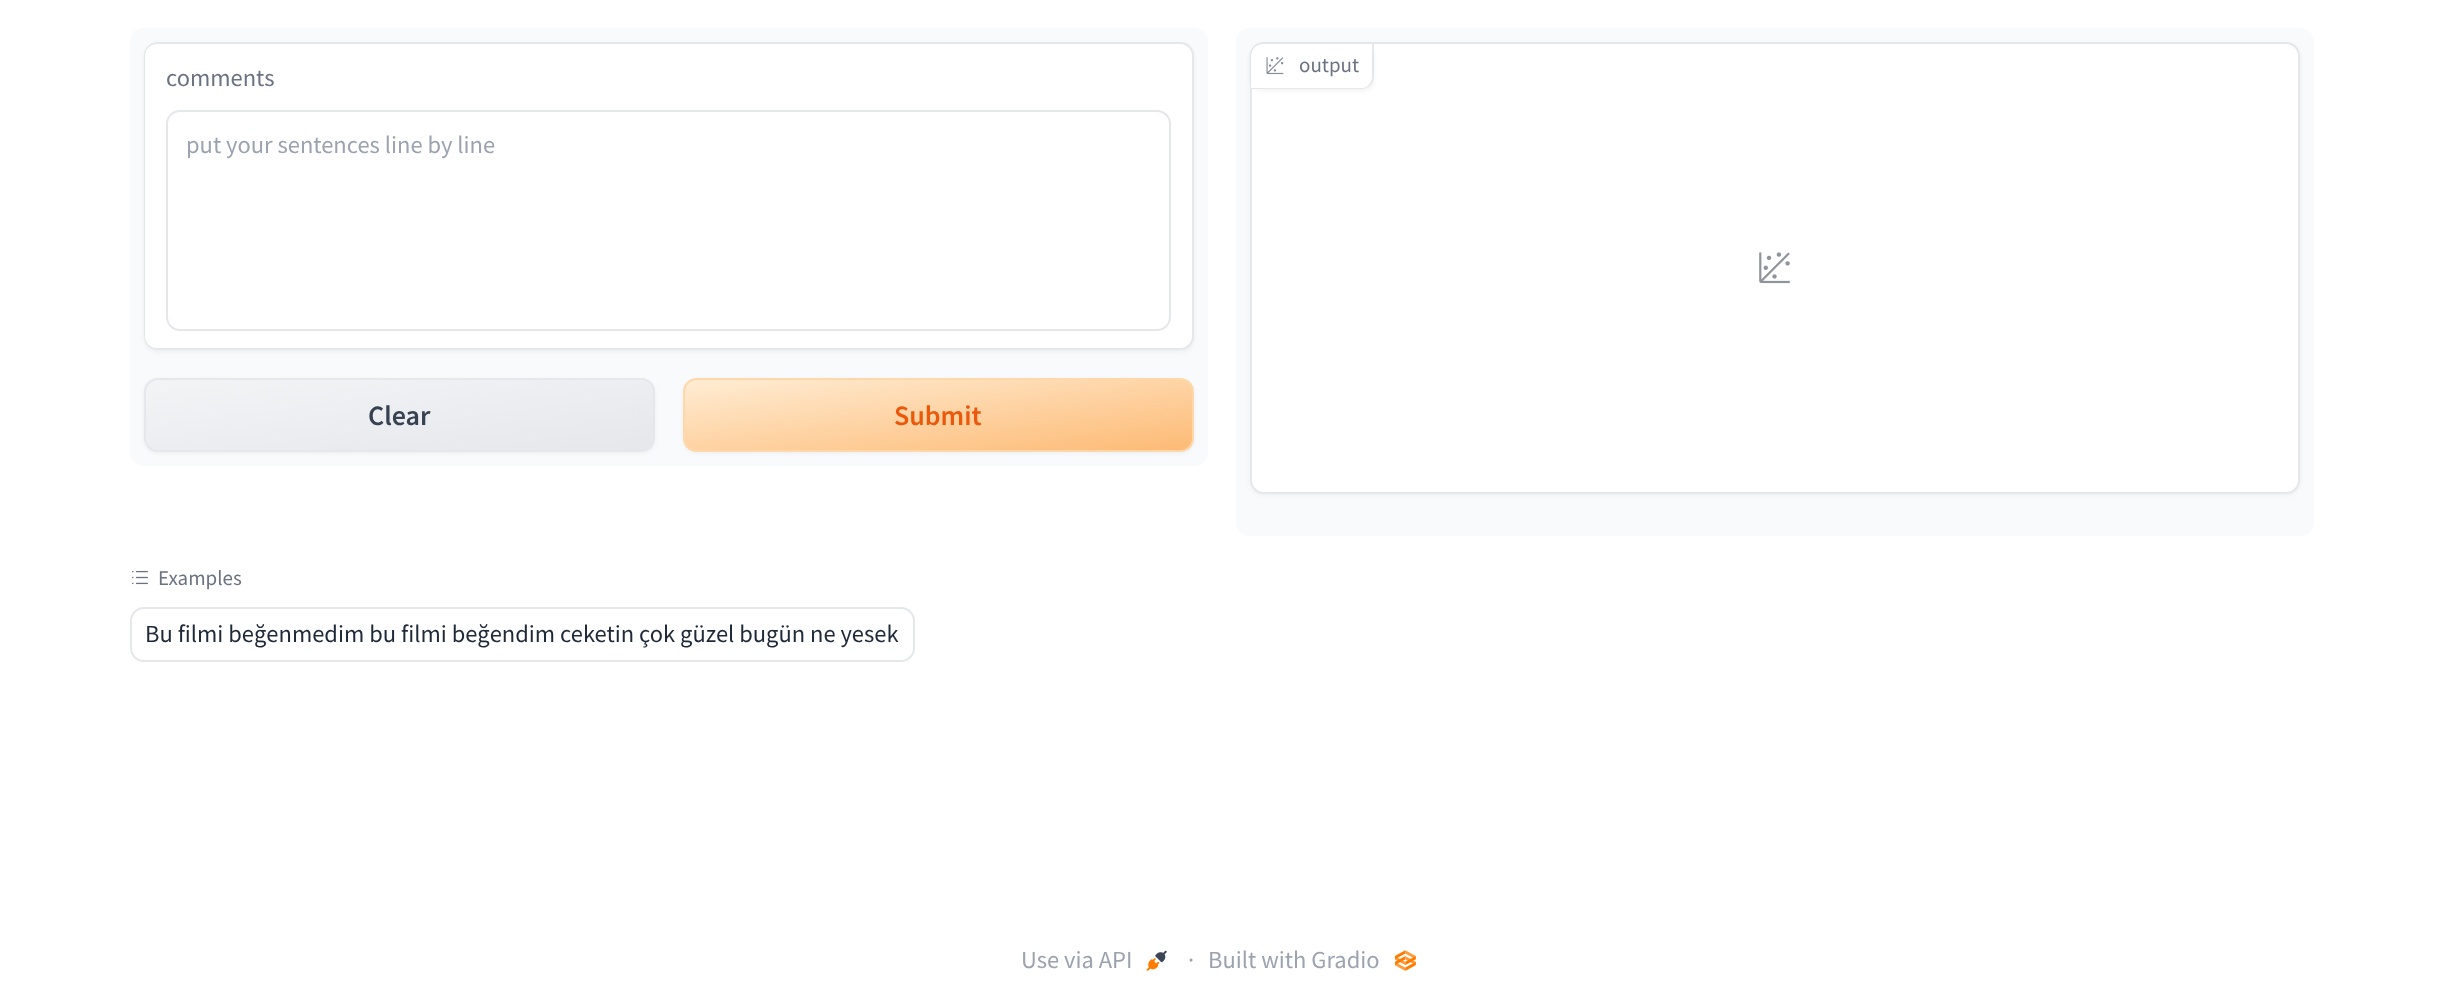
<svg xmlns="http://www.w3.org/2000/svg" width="2442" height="1006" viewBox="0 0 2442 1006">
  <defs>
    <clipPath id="clip1"><rect x="144" y="378" width="511" height="74" rx="14"/></clipPath>
    <linearGradient id="g1" gradientUnits="userSpaceOnUse" x1="390" y1="346" x2="408" y2="483"><stop offset="0" stop-color="#f3f4f6"/><stop offset="1" stop-color="#e5e7eb"/></linearGradient>
    <clipPath id="clip2"><rect x="683" y="378" width="511" height="74" rx="14"/></clipPath>
    <linearGradient id="g2" gradientUnits="userSpaceOnUse" x1="929" y1="346" x2="947" y2="483"><stop offset="0" stop-color="#ffedd5"/><stop offset="1" stop-color="#fdba74"/></linearGradient>
  </defs>
  <rect width="100%" height="100%" fill="#fff"/>
  <rect x="1236" y="28" width="1078" height="508" rx="14" fill="#f9fafb"/>
  <rect x="1250" y="44" width="1050" height="451" rx="14" fill="#0000000d" filter="blur(2px)"/>
  <rect x="1251" y="43" width="1048" height="450" rx="13" fill="#fff" stroke="#e5e7eb" stroke-width="2"/>
  <rect x="1251" y="46" width="123" height="45" rx="12" fill="#0000000d" filter="blur(2px)"/>
  <path d="M1263 44H1374V77C1374 83.5 1368.5 89 1362 89H1251V56C1251 49.5 1256.5 44 1263 44Z" fill="#fff"/>
  <path d="M1264 44H1374V77C1374 84 1368 89 1362 89H1251V56C1251 49 1257 44 1264 44ZM1264 44H1372V77C1372 83 1367 88 1362 88H1251V56C1251 49 1257 44 1264 44Z" fill="#e5e7eb" fill-rule="evenodd"/>
  <image x="1266" y="57" width="18" height="18" href="img/1.png"/>
  <image x="1759" y="252" width="31" height="32" href="img/2.png"/>
  <rect x="130" y="28" width="1078" height="438" rx="14" fill="#f9fafb"/>
  <rect x="144" y="44" width="1050" height="308" rx="14" fill="#0000000d" filter="blur(2px)"/>
  <rect x="145" y="43" width="1048" height="306" rx="13" fill="none" stroke="#e5e7eb" stroke-width="2"/>
  <rect x="145" y="44" width="1047" height="304" rx="12" fill="#fff"/>
  <rect x="167" y="111" width="1003" height="219" rx="13" fill="none" stroke="#e5e7eb" stroke-width="2"/>
  <rect x="144" y="380" width="511" height="73" rx="14" fill="#0000000d" filter="blur(2px)"/>
  <g clip-path="url(#clip1)">
    <path d="M145 380h508v70H145z" fill="url(#g1)"/>
  </g>
  <rect x="145" y="379" width="509" height="72" rx="13" fill="none" stroke="#e5e7eb" stroke-width="2"/>
  <rect x="683" y="380" width="511" height="73" rx="14" fill="#0000000d" filter="blur(2px)"/>
  <g clip-path="url(#clip2)">
    <path d="M684 380h508v70H684z" fill="url(#g2)"/>
  </g>
  <rect x="684" y="379" width="509" height="72" rx="13" fill="none" stroke="#fed7aa" stroke-width="2"/>
  <image x="132" y="570" width="16" height="15" href="img/3.png"/>
  <rect x="131" y="608" width="783" height="53" rx="13" fill="none" stroke="#e5e7eb" stroke-width="2"/>
  <image x="1146" y="950" width="21" height="21" href="img/4.png"/>
  <image x="1395" y="950" width="21" height="21" href="img/5.png"/>
  <text x="1299" y="72" font-family="Source Sans Pro" font-size="21" fill="#6b7280">output</text>
  <text x="166" y="86" font-family="Source Sans Pro" font-size="24.5" fill="#6b7280">comments</text>
  <text x="186" y="153" font-family="Source Sans Pro" font-size="24.5" fill="#9ca3af">put your sentences line by line</text>
  <text x="368" y="425" font-family="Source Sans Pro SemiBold" font-size="28" font-weight="600" fill="#374151">Clear</text>
  <text x="894" y="425" font-family="Source Sans Pro SemiBold" font-size="28" font-weight="600" fill="#ea580c">Submit</text>
  <text x="158" y="585" font-family="Source Sans Pro" font-size="21" fill="#6b7280">Examples</text>
  <text x="145" y="642" font-family="Source Sans Pro" font-size="24.5" fill="#1f2937">Bu filmi beğenmedim bu filmi beğendim ceketin çok güzel bugün ne yesek</text>
  <g font-family="Source Sans Pro" font-size="24.5" fill="#9ca3af">
    <text x="1021" y="968">Use via API</text>
    <text x="1188" y="968">·</text>
    <text x="1208" y="968">Built with Gradio</text>
  </g>
</svg>
